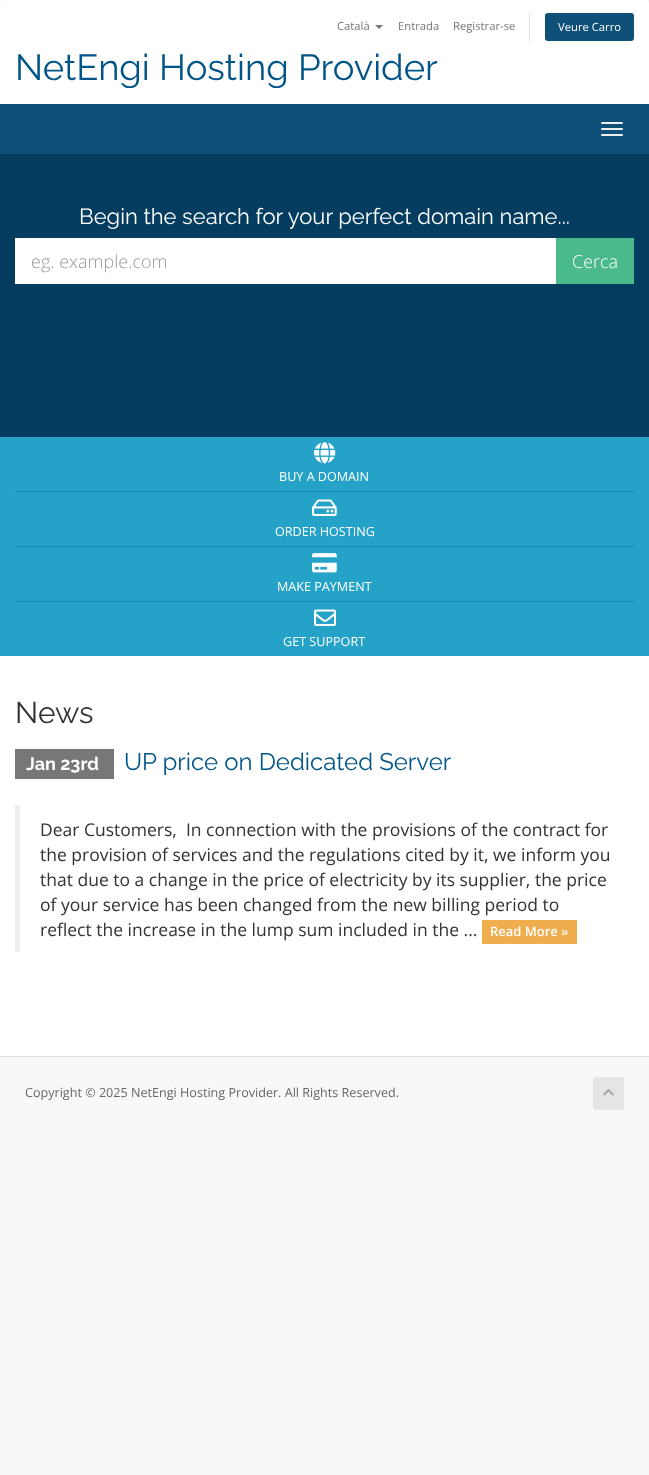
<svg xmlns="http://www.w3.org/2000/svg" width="649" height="1475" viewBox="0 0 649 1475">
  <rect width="100%" height="100%" fill="#f8f8f8"/>
  <path d="M5 0H644C647 0 649 2 649 5V104H0V5C0 2 2 0 5 0Z" fill="#fff"/>
  <path d="M375 25H383L379 29Z" fill="#777"/>
  <path d="M529 13h1v28H529z" fill="#ddd"/>
  <rect x="545" y="13" width="89" height="28" rx="3" fill="#0e5077"/>
  <path d="M0 104h649v50H0z" fill="#0e5077"/>
  <rect x="601" y="122" width="22" height="2" rx="1" fill="#eee"/>
  <rect x="601" y="128" width="22" height="2" rx="1" fill="#eee"/>
  <rect x="601" y="134" width="22" height="2" rx="1" fill="#eee"/>
  <path d="M0 154h649v283H0z" fill="#043d5f"/>
  <path d="M15 238h541v46H15z" fill="#fff"/>
  <path d="M556 238h78v46H556z" fill="#4ab98b"/>
  <path d="M0 437h649v219H0z" fill="#25a2c7"/>
  <path d="M15 491h619v1H15z" fill="#0e88b0"/>
  <image x="314" y="442" width="22" height="22" href="img/1.png"/>
  <path d="M15 546h619v1H15z" fill="#0e88b0"/>
  <image x="312" y="499" width="25" height="17" href="img/2.png"/>
  <path d="M15 601h619v1H15z" fill="#0e88b0"/>
  <image x="312" y="553" width="25" height="20" href="img/3.png"/>
  <image x="314" y="609" width="22" height="17" href="img/4.png"/>
  <path d="M0 656h649v400H0z" fill="#fff"/>
  <path d="M15 749h99v30H15z" fill="#777"/>
  <path d="M15 805h5v147H15z" fill="#eee"/>
  <path d="M482 920h95v24H482z" fill="#f0ad4e"/>
  <path d="M0 1056h649v1H0z" fill="#ddd"/>
  <rect x="593" y="1077" width="31" height="33" rx="3" fill="#e5e5e5"/>
  <image x="603" y="1089" width="11" height="7" href="img/5.png"/>
  <g font-family="Open Sans" font-size="11.25" fill="#777">
    <text x="337" y="30">Català</text>
    <text x="398" y="30">Entrada</text>
    <text x="453" y="30">Registrar-se</text>
  </g>
  <text x="558" y="31" font-family="Open Sans" font-size="11.25" fill="#fff">Veure Carro</text>
  <text x="15" y="80" font-family="Raleway" font-size="36.4" fill="#058">NetEngi Hosting Provider</text>
  <text x="79" y="224" font-family="Raleway" font-size="22" fill="#fff">Begin the search for your perfect domain name...</text>
  <text x="31" y="268" font-family="Open Sans" font-size="18" font-weight="300" fill="#999">eg. example.com</text>
  <text x="572" y="268" font-family="Open Sans" font-size="18" font-weight="300" fill="#fff">Cerca</text>
  <g font-family="Open Sans" font-size="12.6" fill="#fff">
    <text x="279" y="481">BUY A DOMAIN</text>
    <text x="275" y="536">ORDER HOSTING</text>
    <text x="277" y="591">MAKE PAYMENT</text>
    <text x="283" y="646">GET SUPPORT</text>
  </g>
  <text x="15" y="723" font-family="Raleway" font-size="30" fill="#333">News</text>
  <text x="26" y="770" font-family="Raleway" font-size="18" font-weight="bold" fill="#fff">Jan 23rd</text>
  <text x="124" y="770" font-family="Raleway" font-size="24" fill="#058">UP price on Dedicated Server</text>
  <g font-family="Open Sans" font-size="17.5" fill="#333">
    <text x="40" y="836" xml:space="preserve">Dear Customers,  In connection with the provisions of the contract for</text>
    <text x="40" y="861">the provision of services and the regulations cited by it, we inform you</text>
    <text x="40" y="886">that due to a change in the price of electricity by its supplier, the price</text>
    <text x="40" y="911">of your service has been changed from the new billing period to</text>
    <text x="40" y="936">reflect the increase in the lump sum included in the ...</text>
  </g>
  <text x="490" y="936" font-family="Open Sans" font-size="13" font-weight="600" fill="#fff">Read More »</text>
  <text x="25" y="1097" font-family="Open Sans" font-size="12.6" fill="#666">Copyright © 2025 NetEngi Hosting Provider. All Rights Reserved.</text>
</svg>
